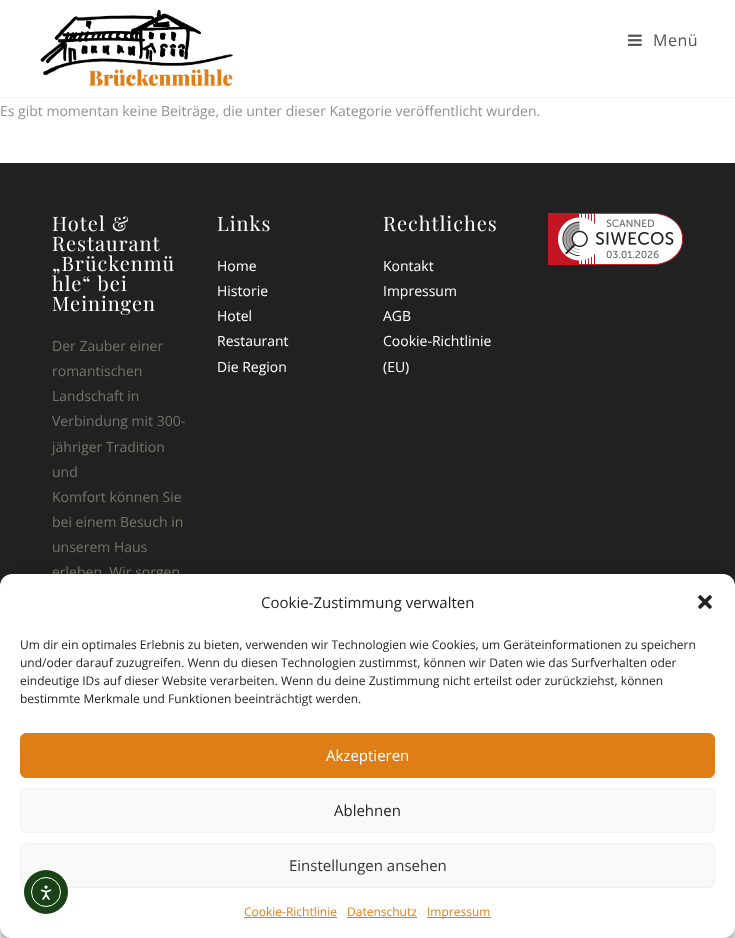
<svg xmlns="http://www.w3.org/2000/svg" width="735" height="938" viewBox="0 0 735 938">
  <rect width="100%" height="100%" fill="#fff"/>
  <path d="M0 97h735v1H0z" fill="#f1f1f1"/>
  <image x="40" y="9" width="193" height="77" href="img/1.png"/>
  <image x="628" y="34" width="14" height="12" href="img/2.png"/>
  <path d="M0 163h735v423H0z" fill="#212121"/>
  <image x="548" y="213" width="135" height="52" href="img/3.png"/>
  <rect y="580" width="735" height="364" rx="12" fill="#0000003b" filter="blur(3px)"/>
  <rect y="584" width="735" height="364" rx="12" fill="#00000030" filter="blur(10px)"/>
  <text x="653" y="46" font-family="Open Sans" font-size="16" letter-spacing="0.5" fill="#555">Menü</text>
  <text x="0" y="116" font-family="Open Sans" font-size="14" fill="#929292">Es gibt momentan keine Beiträge, die unter dieser Kategorie veröffentlicht wurden.</text>
  <g font-family="Playfair Display" font-size="20" letter-spacing="1" fill="#fff">
    <text x="52" y="231">Hotel &amp;</text>
    <text x="52" y="251">Restaurant</text>
    <text x="52" y="271">„Brückenmü</text>
    <text x="52" y="291">hle“ bei</text>
    <text x="52" y="311">Meiningen</text>
  </g>
  <g font-family="Open Sans" font-size="14" fill="#75756d">
    <text x="52" y="351">Der Zauber einer</text>
    <text x="52" y="376">romantischen</text>
    <text x="52" y="401">Landschaft in</text>
    <text x="52" y="426">Verbindung mit 300-</text>
    <text x="52" y="452">jähriger Tradition</text>
    <text x="52" y="477">und</text>
    <text x="52" y="502">Komfort können Sie</text>
    <text x="52" y="527">bei einem Besuch in</text>
    <text x="52" y="552">unserem Haus</text>
    <text x="52" y="577">erleben. Wir sorgen</text>
  </g>
  <text x="217" y="231" font-family="Playfair Display" font-size="20" letter-spacing="1" fill="#fff">Links</text>
  <g font-family="Open Sans" font-size="14" fill="#fff">
    <text x="217" y="271">Home</text>
    <text x="217" y="296">Historie</text>
    <text x="217" y="321">Hotel</text>
    <text x="217" y="346">Restaurant</text>
    <text x="217" y="372">Die Region</text>
  </g>
  <text x="383" y="231" font-family="Playfair Display" font-size="20" letter-spacing="1" fill="#fff">Rechtliches</text>
  <g font-family="Open Sans" font-size="14" fill="#fff">
    <text x="383" y="271">Kontakt</text>
    <text x="383" y="296">Impressum</text>
    <text x="383" y="321">AGB</text>
    <text x="383" y="346">Cookie-Richtlinie</text>
    <text x="383" y="372">(EU)</text>
  </g>
  <rect y="574" width="735" height="364" rx="12" fill="#fff"/>
  <text x="261" y="608" font-family="Open Sans" font-size="15" fill="#222">Cookie-Zustimmung verwalten</text>
  <image x="698" y="595" width="14" height="14" href="img/4.png"/>
  <g font-family="Open Sans" font-size="12" fill="#222">
    <text x="20" y="649">Um dir ein optimales Erlebnis zu bieten, verwenden wir Technologien wie Cookies, um Geräteinformationen zu speichern</text>
    <text x="20" y="667">und/oder darauf zuzugreifen. Wenn du diesen Technologien zustimmst, können wir Daten wie das Surfverhalten oder</text>
    <text x="20" y="685">eindeutige IDs auf dieser Website verarbeiten. Wenn du deine Zustimmung nicht erteilst oder zurückziehst, können</text>
    <text x="20" y="703">bestimmte Merkmale und Funktionen beeinträchtigt werden.</text>
  </g>
  <rect x="20.5" y="733.5" width="694" height="44" rx="5.5" fill="#df7e17" stroke="#df7e17"/>
  <text x="326" y="761" font-family="Open Sans" font-size="15" fill="#fff">Akzeptieren</text>
  <rect x="20.5" y="788.5" width="694" height="44" rx="5.5" fill="#f9f9f9" stroke="#f2f2f2"/>
  <text x="334" y="816" font-family="Open Sans" font-size="15" fill="#222">Ablehnen</text>
  <rect x="20.5" y="843.5" width="694" height="44" rx="5.5" fill="#f9f9f9" stroke="#f2f2f2"/>
  <text x="289" y="871" font-family="Open Sans" font-size="15" fill="#333">Einstellungen ansehen</text>
  <text x="244" y="916" font-family="Open Sans" font-size="12" fill="#df7e17">Cookie-Richtlinie</text>
  <path d="M244 917h93v1H244z" fill="#df7e17"/>
  <text x="347" y="916" font-family="Open Sans" font-size="12" fill="#df7e17">Datenschutz</text>
  <path d="M347 917h70v1H347z" fill="#df7e17"/>
  <path d="M427 917h64v1H427z" fill="#df7e17"/>
  <text x="427" y="916" font-family="Open Sans" font-size="12" fill="#df7e17">Impressum</text>
  <circle cx="46" cy="892" r="22" fill="#194316"/>
  <circle cx="46" cy="892" r="14.5" fill="none" stroke="#fff"/>
  <image x="40" y="885" width="12" height="15" href="img/5.png"/>
</svg>
